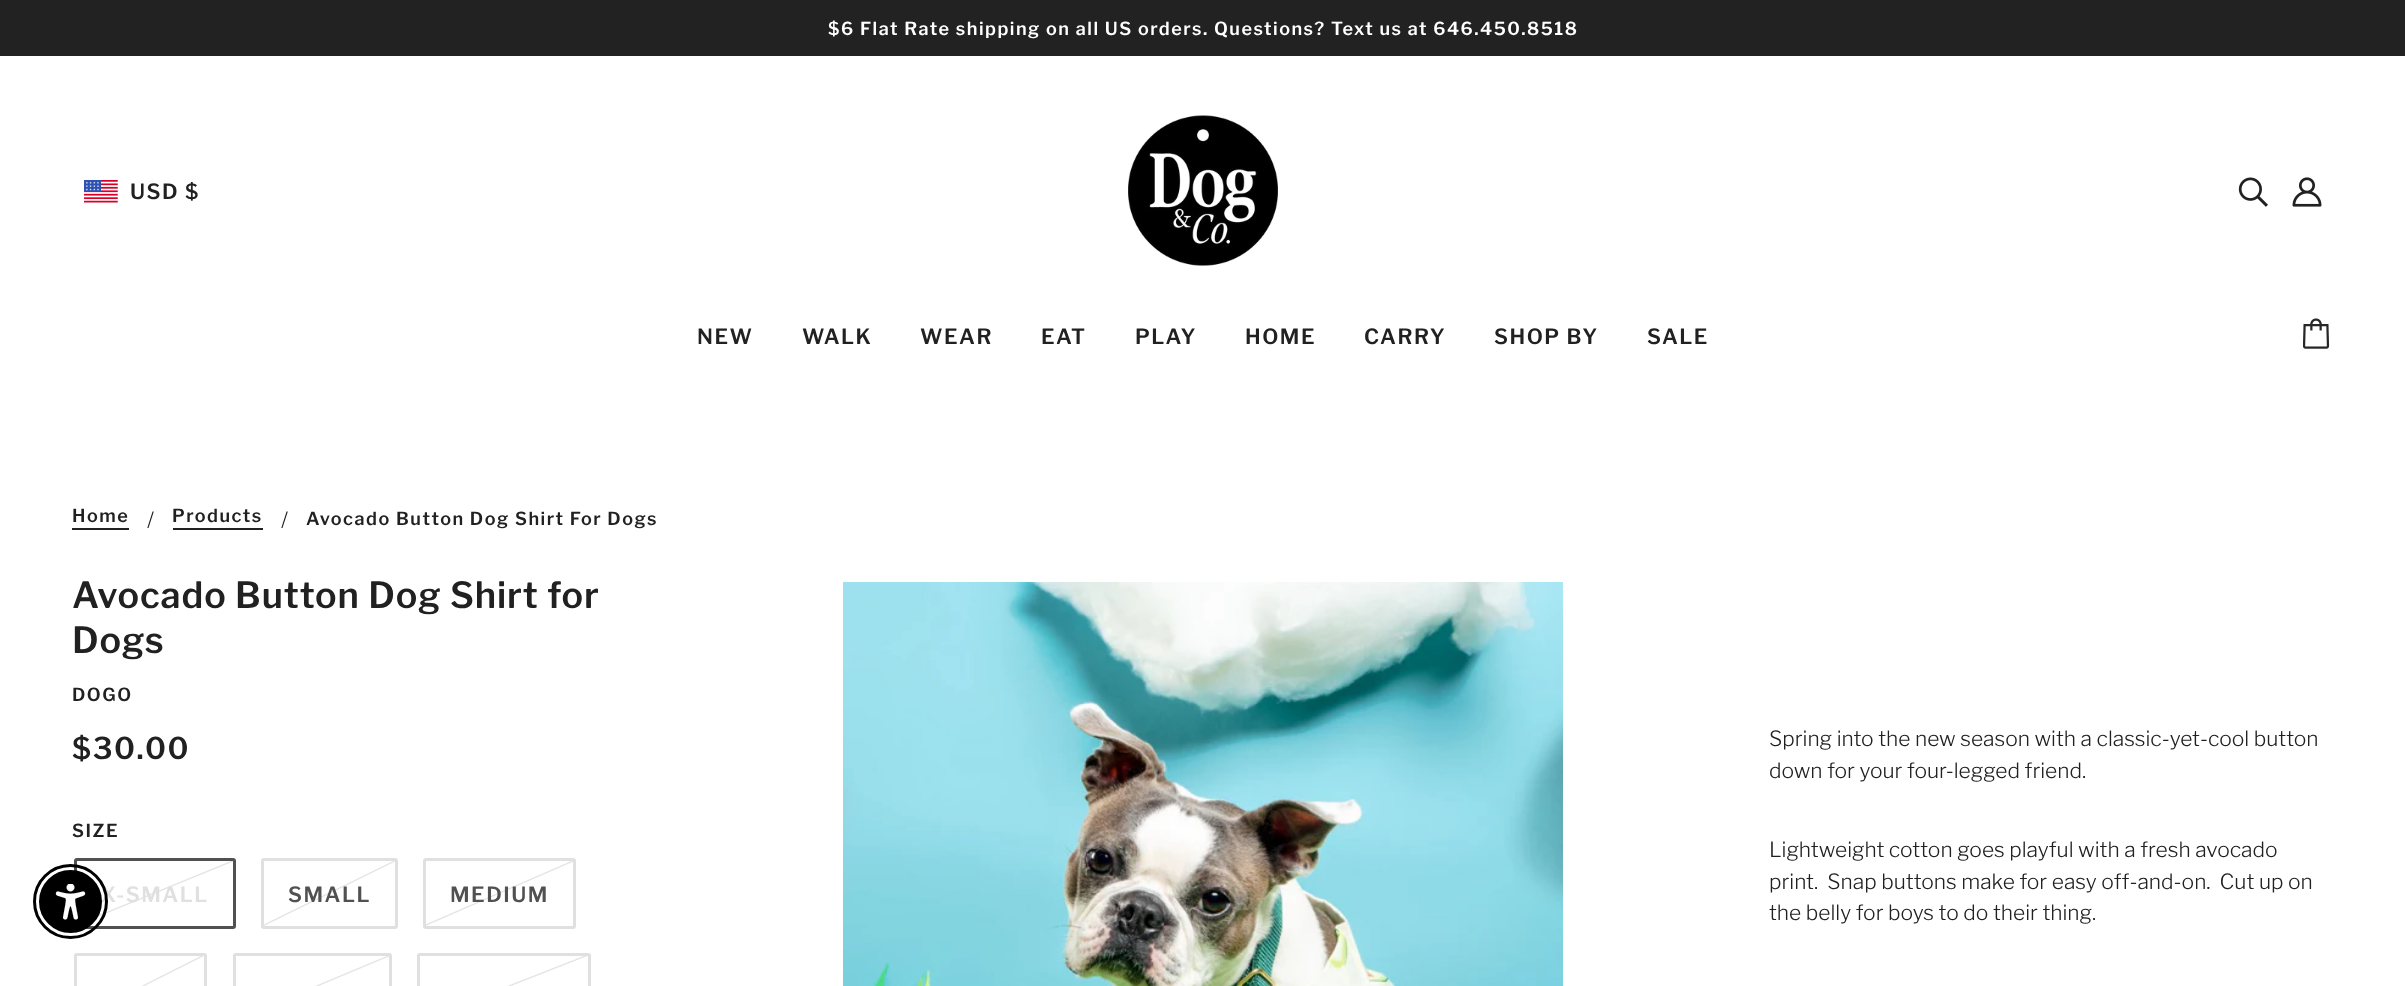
<svg xmlns="http://www.w3.org/2000/svg" width="2405" height="986" viewBox="0 0 2405 986">
  <defs>
    <linearGradient id="g1" gradientUnits="userSpaceOnUse" x1="177" y1="948" x2="132" y2="838"><stop offset="0.49" stop-color="#fff"/><stop offset="0.5" stop-color="#e0e0e0"/><stop offset="0.51" stop-color="#fff"/></linearGradient>
    <linearGradient id="g2" gradientUnits="userSpaceOnUse" x1="355" y1="945" x2="304" y2="841"><stop offset="0.49" stop-color="#fff"/><stop offset="0.5" stop-color="#e0e0e0"/><stop offset="0.51" stop-color="#fff"/></linearGradient>
    <linearGradient id="g3" gradientUnits="userSpaceOnUse" x1="523" y1="947" x2="476" y2="839"><stop offset="0.49" stop-color="#fff"/><stop offset="0.5" stop-color="#e0e0e0"/><stop offset="0.51" stop-color="#fff"/></linearGradient>
    <linearGradient id="g4" gradientUnits="userSpaceOnUse" x1="166" y1="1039" x2="114" y2="936"><stop offset="0.49" stop-color="#fff"/><stop offset="0.5" stop-color="#e0e0e0"/><stop offset="0.51" stop-color="#fff"/></linearGradient>
    <linearGradient id="g5" gradientUnits="userSpaceOnUse" x1="335" y1="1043" x2="289" y2="933"><stop offset="0.49" stop-color="#fff"/><stop offset="0.5" stop-color="#e0e0e0"/><stop offset="0.51" stop-color="#fff"/></linearGradient>
    <linearGradient id="g6" gradientUnits="userSpaceOnUse" x1="526" y1="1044" x2="482" y2="932"><stop offset="0.49" stop-color="#fff"/><stop offset="0.5" stop-color="#e0e0e0"/><stop offset="0.51" stop-color="#fff"/></linearGradient>
  </defs>
  <rect width="100%" height="100%" fill="#fff"/>
  <path d="M0 0h2405v56H0z" fill="#222"/>
  <image x="84" y="180" width="34" height="23" href="img/2.png"/>
  <image x="1128" y="115" width="150" height="151" href="img/3.png"/>
  <image x="2238" y="177" width="30" height="30" href="img/4.png"/>
  <image x="2292" y="177" width="30" height="30" href="img/5.png"/>
  <image x="2303" y="318" width="27" height="31" href="img/6.png"/>
  <path d="M72 528h57v2H72z" fill="#212121"/>
  <path d="M173 528h90v2H173z" fill="#212121"/>
  <path d="M77 861h156v65H77z" fill="url(#g1)"/>
  <rect x="75.5" y="859.5" width="159" height="68" rx="1.5" fill="none" stroke="#515151" stroke-width="3"/>
  <path d="M264 861h131v65H264z" fill="url(#g2)"/>
  <rect x="262.5" y="859.5" width="134" height="68" rx="1.5" fill="none" stroke="#e0e0e0" stroke-width="3"/>
  <path d="M426 861h147v65H426z" fill="url(#g3)"/>
  <rect x="424.5" y="859.5" width="150" height="68" rx="1.5" fill="none" stroke="#e0e0e0" stroke-width="3"/>
  <path d="M142 956h62v30H142z" fill="url(#g4)"/>
  <rect x="75.5" y="954.5" width="130" height="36" rx="1.5" fill="none" stroke="#e0e0e0" stroke-width="3"/>
  <path d="M315 956h74v30H315z" fill="url(#g5)"/>
  <rect x="234.5" y="954.5" width="156" height="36" rx="1.5" fill="none" stroke="#e0e0e0" stroke-width="3"/>
  <path d="M507 956h80v30H507z" fill="url(#g6)"/>
  <rect x="418.5" y="954.5" width="171" height="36" rx="1.5" fill="none" stroke="#e0e0e0" stroke-width="3"/>
  <image x="843" y="582" width="720" height="404" href="img/7.png"/>
  <text x="828" y="35" font-family="Libre Franklin" font-size="18" font-weight="600" letter-spacing="1.5" fill="#fff">$6 Flat Rate shipping on all US orders. Questions? Text us at 646.450.8518</text>
  <g font-family="Libre Franklin" font-size="21" font-weight="600" letter-spacing="1.5" fill="#212121">
    <text x="130" y="199">USD $</text>
    <text x="697" y="344">NEW</text>
    <text x="802" y="344">WALK</text>
    <text x="920" y="344">WEAR</text>
    <text x="1041" y="344">EAT</text>
    <text x="1135" y="344">PLAY</text>
    <text x="1245" y="344">HOME</text>
    <text x="1364" y="344">CARRY</text>
    <text x="1494" y="344">SHOP BY</text>
    <text x="1647" y="344">SALE</text>
  </g>
  <text x="72" y="522" font-family="Libre Franklin" font-size="18" font-weight="600" letter-spacing="1.5" fill="#212121">Home</text>
  <text x="147" y="527" font-family="Libre Franklin" font-size="21" font-weight="300" fill="#212121">/</text>
  <text x="172" y="522" font-family="Libre Franklin" font-size="18" font-weight="600" letter-spacing="1.5" fill="#212121">Products</text>
  <text x="281" y="527" font-family="Libre Franklin" font-size="21" font-weight="300" fill="#212121">/</text>
  <text x="306" y="525" font-family="Libre Franklin" font-size="18" font-weight="600" letter-spacing="1.5" fill="#212121">Avocado Button Dog Shirt For Dogs</text>
  <g font-family="Libre Franklin" font-size="36" font-weight="600" letter-spacing="0.9" fill="#212121">
    <text x="72" y="608">Avocado Button Dog Shirt for</text>
    <text x="72" y="653">Dogs</text>
  </g>
  <text x="72" y="701" font-family="Libre Franklin" font-size="18" font-weight="600" letter-spacing="1.5" fill="#212121">DOGO</text>
  <text x="72" y="759" font-family="Libre Franklin" font-size="30" font-weight="600" letter-spacing="1.5" fill="#212121">$30.00</text>
  <text x="72" y="837" font-family="Libre Franklin" font-size="18" font-weight="600" letter-spacing="1.5" fill="#212121">SIZE</text>
  <text x="101" y="902" font-family="Libre Franklin" font-size="21" font-weight="600" letter-spacing="1.5" fill="#e0e0e0">X-SMALL</text>
  <circle cx="70.5" cy="901.5" r="36" fill="none" stroke="#000" stroke-width="3"/>
  <circle cx="70.5" cy="901.5" r="30.5" fill="#000" stroke="#000" stroke-width="2"/>
  <image x="55" y="884" width="31" height="36" href="img/1.png"/>
  <g font-family="Libre Franklin" font-size="21" font-weight="600" letter-spacing="1.5" fill="#515151">
    <text x="288" y="902">SMALL</text>
    <text x="450" y="902">MEDIUM</text>
  </g>
  <g font-family="Libre Franklin" font-size="21" font-weight="300" fill="#212121">
    <text x="1769" y="746">Spring into the new season with a classic-yet-cool button</text>
    <text x="1769" y="778">down for your four-legged friend.</text>
    <text x="1769" y="857">Lightweight cotton goes playful with a fresh avocado</text>
    <text x="1769" y="889" xml:space="preserve">print.  Snap buttons make for easy off-and-on.  Cut up on</text>
    <text x="1769" y="920">the belly for boys to do their thing.</text>
  </g>
</svg>
